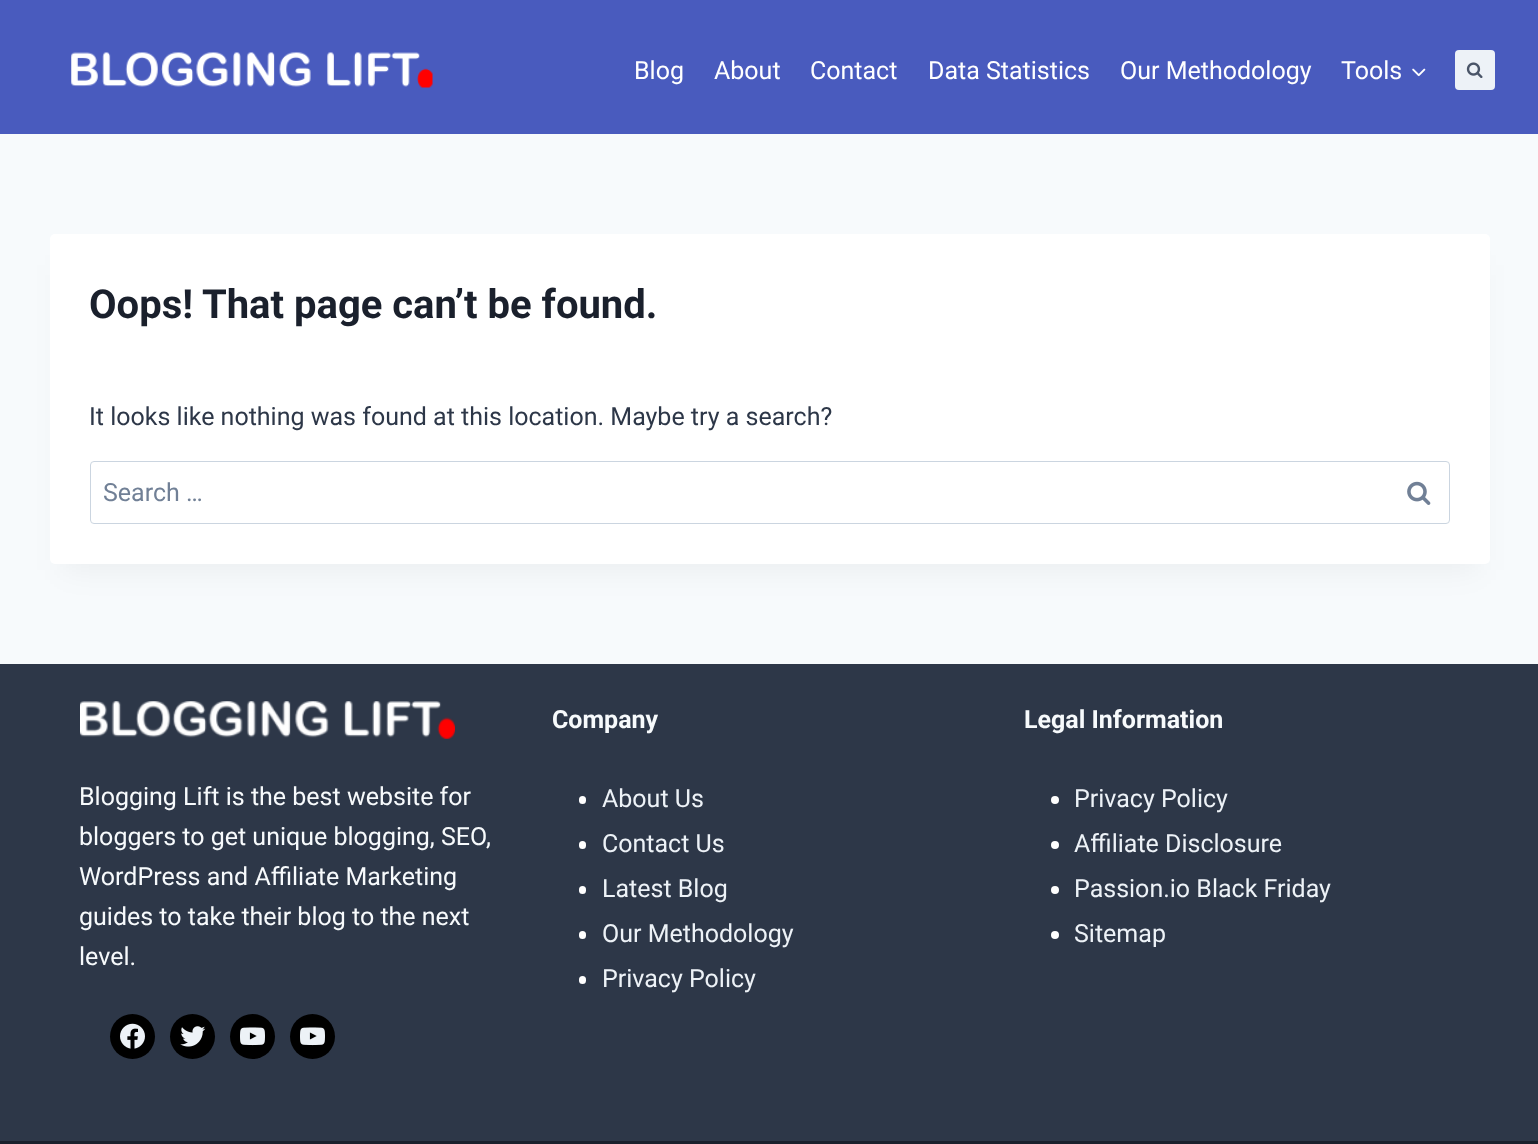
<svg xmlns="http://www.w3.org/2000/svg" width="1538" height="1144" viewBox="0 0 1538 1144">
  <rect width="100%" height="100%" fill="#f7fafc"/>
  <path d="M0 0h1538v134H0z" fill="#495bbe"/>
  <image x="71" y="52" width="362" height="36" href="img/1.png"/>
  <image x="1412" y="68" width="14" height="9" href="img/2.png"/>
  <rect x="1455" y="50" width="40" height="40" rx="4" fill="#edf2f7"/>
  <image x="1466" y="62" width="17" height="16" href="img/3.png"/>
  <path d="M63 265h1415v305H63z" fill="#0000000d" filter="blur(15.5px)"/>
  <rect x="50" y="234" width="1440" height="330" rx="5" fill="#fff"/>
  <rect x="90.5" y="461.5" width="1359" height="62" rx="3.5" fill="none" stroke="#cbd5e0"/>
  <image x="1407" y="481" width="24" height="24" href="img/4.png"/>
  <path d="M0 664h1538v477H0z" fill="#2d3748"/>
  <image x="80" y="701" width="375" height="38" href="img/5.png"/>
  <circle cx="132.5" cy="1036.5" r="22.5" fill="#000"/>
  <image x="120" y="1023" width="25" height="26" href="img/6.png"/>
  <circle cx="192.5" cy="1036.5" r="22.5" fill="#000"/>
  <image x="180" y="1026" width="26" height="21" href="img/7.png"/>
  <circle cx="252.5" cy="1036.5" r="22.5" fill="#000"/>
  <image x="240" y="1027" width="25" height="19" href="img/8.png"/>
  <circle cx="312.5" cy="1036.5" r="22.5" fill="#000"/>
  <image x="300" y="1027" width="25" height="19" href="img/8.png"/>
  <rect x="579" y="796" width="7" height="8" rx="3.5" fill="#fff"/>
  <rect x="579" y="841" width="7" height="8" rx="3.5" fill="#fff"/>
  <rect x="579" y="886" width="7" height="8" rx="3.5" fill="#fff"/>
  <rect x="579" y="931" width="7" height="8" rx="3.5" fill="#fff"/>
  <rect x="579" y="976" width="7" height="8" rx="3.5" fill="#fff"/>
  <circle cx="1055" cy="800" r="4" fill="#fff"/>
  <circle cx="1055" cy="845" r="4" fill="#fff"/>
  <circle cx="1055" cy="890" r="4" fill="#fff"/>
  <circle cx="1055" cy="935" r="4" fill="#fff"/>
  <path d="M0 1141h1538v3H0z" fill="#1a202c"/>
  <g font-family="Roboto" font-size="25" fill="#fff">
    <text x="634" y="79">Blog</text>
    <text x="714" y="79">About</text>
    <text x="810" y="79">Contact</text>
    <text x="928" y="79">Data Statistics</text>
    <text x="1120" y="79">Our Methodology</text>
    <text x="1341" y="79">Tools</text>
  </g>
  <text x="89" y="318" font-family="Roboto" font-size="40" font-weight="bold" fill="#1a202c">Oops! That page can’t be found.</text>
  <text x="89" y="425" font-family="Roboto" font-size="25" fill="#2d3748">It looks like nothing was found at this location. Maybe try a search?</text>
  <text x="103" y="501" font-family="Roboto" font-size="25" fill="#718096">Search …</text>
  <g font-family="Roboto" font-size="25" fill="#f7fafc">
    <text x="79" y="805">Blogging Lift is the best website for</text>
    <text x="79" y="845">bloggers to get unique blogging, SEO,</text>
    <text x="79" y="885">WordPress and Affiliate Marketing</text>
    <text x="79" y="925">guides to take their blog to the next</text>
    <text x="79" y="965">level.</text>
  </g>
  <text x="552" y="728" font-family="Roboto" font-size="25" font-weight="bold" fill="#f7fafc">Company</text>
  <g font-family="Roboto" font-size="25" fill="#edf2f7">
    <text x="602" y="807">About Us</text>
    <text x="602" y="852">Contact Us</text>
    <text x="602" y="897">Latest Blog</text>
    <text x="602" y="942">Our Methodology</text>
    <text x="602" y="987">Privacy Policy</text>
  </g>
  <text x="1024" y="728" font-family="Roboto" font-size="25" font-weight="bold" fill="#f7fafc">Legal Information</text>
  <g font-family="Roboto" font-size="25" fill="#edf2f7">
    <text x="1074" y="807">Privacy Policy</text>
    <text x="1074" y="852">Affiliate Disclosure</text>
    <text x="1074" y="897">Passion.io Black Friday</text>
    <text x="1074" y="942">Sitemap</text>
  </g>
</svg>
